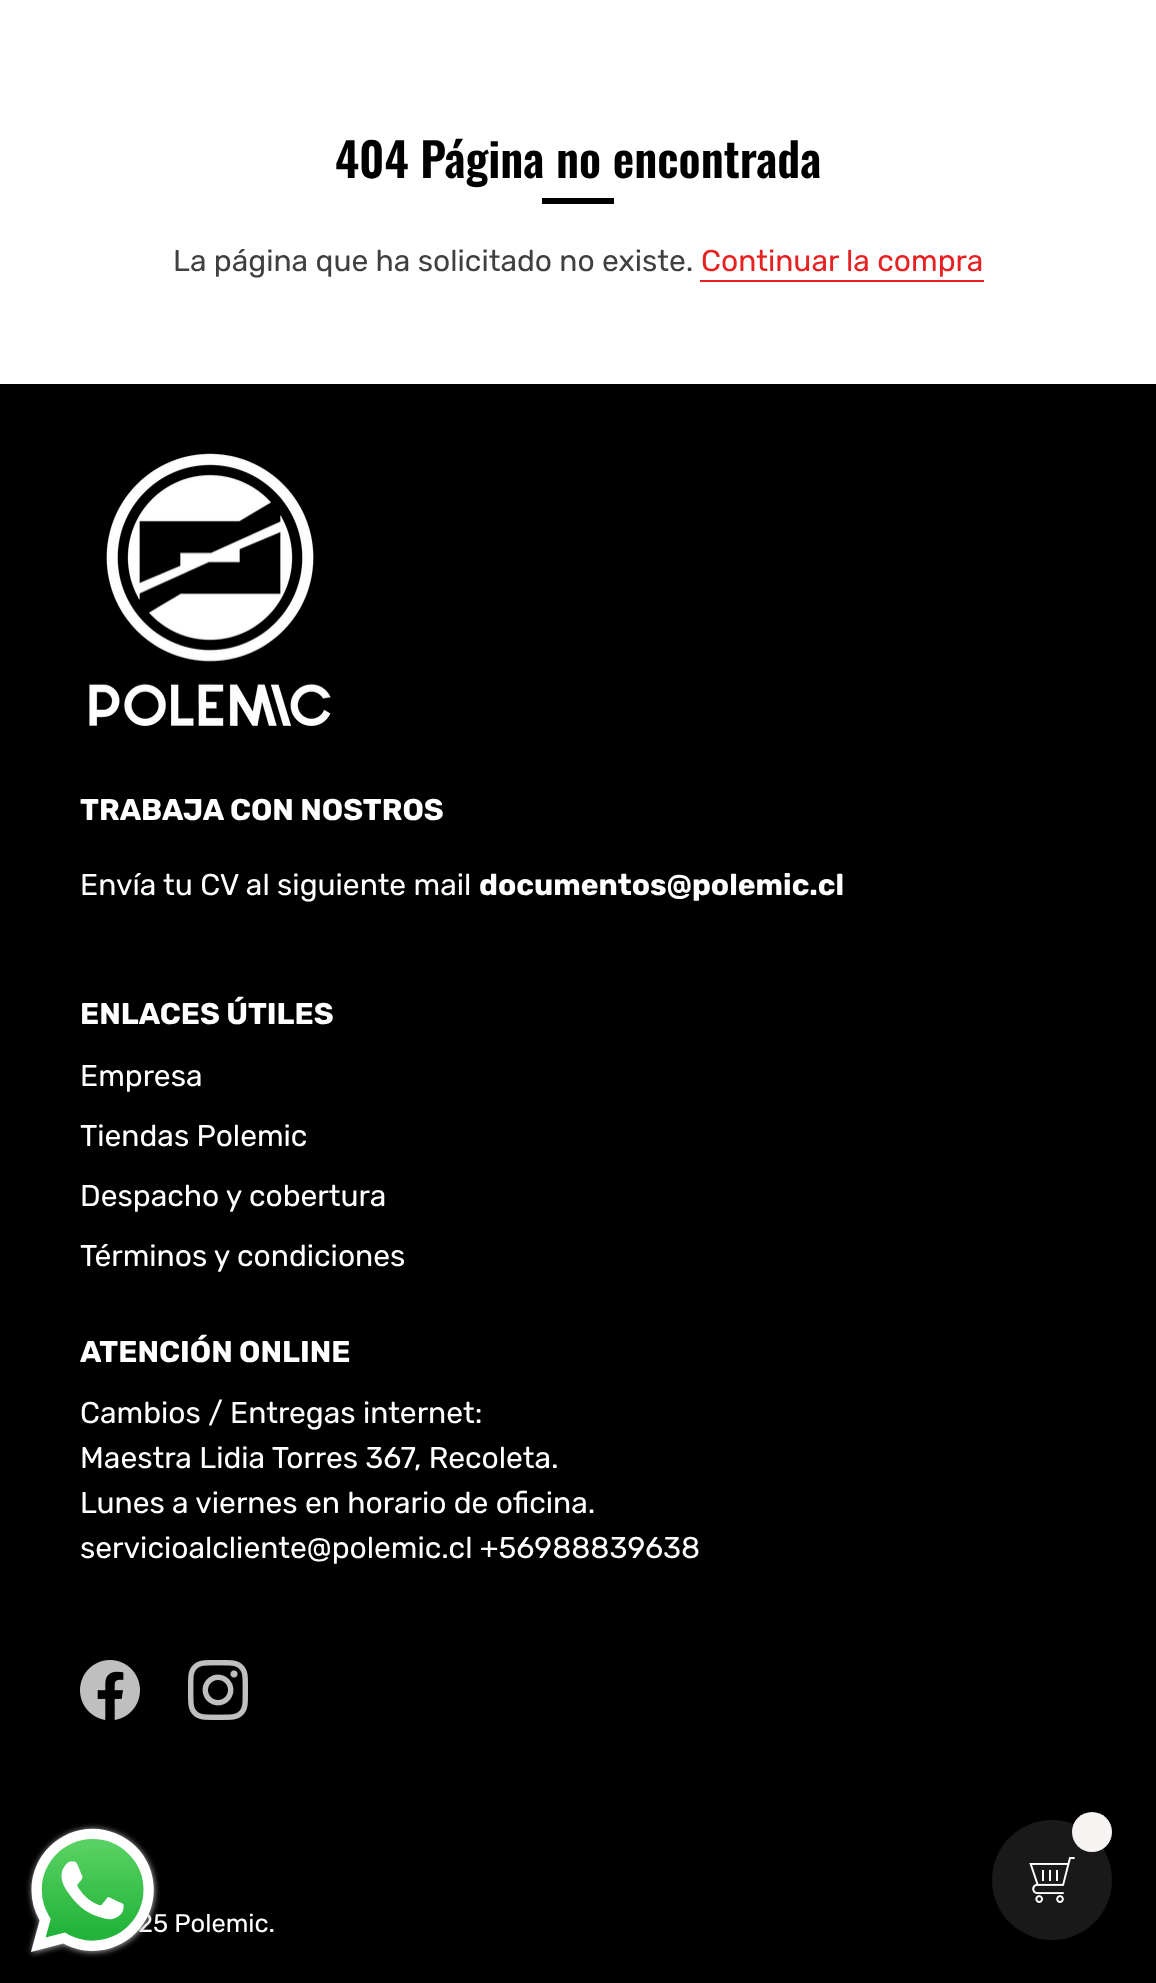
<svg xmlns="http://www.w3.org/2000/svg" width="1156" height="1983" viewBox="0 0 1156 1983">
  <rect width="100%" height="100%" fill="#fff"/>
  <path d="M542 198h72v6H542z" fill="#000"/>
  <path d="M700 280h284v2H700z" fill="#e72121"/>
  <path d="M0 384h1156v1599H0z" fill="#000"/>
  <image x="89" y="453" width="242" height="273" href="img/1.png"/>
  <image x="80" y="1660" width="60" height="60" href="img/2.png"/>
  <image x="188" y="1660" width="60" height="60" href="img/3.png"/>
  <circle cx="1052" cy="1880" r="60" fill="#191919"/>
  <circle cx="1092" cy="1832" r="20" fill="#f7f3f3"/>
  <image x="1029" y="1857" width="46" height="46" href="img/4.png"/>
  <text x="335" y="178" font-family="Oswald" font-size="46.75" font-weight="600" fill="#000">404 Página no encontrada</text>
  <text x="173" y="271" font-family="Rubik" font-size="30" fill="#423f3f">La página que ha solicitado no existe.</text>
  <text x="701" y="271" font-family="Rubik" font-size="30" fill="#e72121">Continuar la compra</text>
  <text x="80" y="820" font-family="Rubik" font-size="30" font-weight="bold" fill="#fff">TRABAJA CON NOSTROS</text>
  <text x="80" y="895" font-family="Rubik" font-size="30" fill="#fff">Envía tu CV al siguiente mail</text>
  <g font-family="Rubik" font-size="30" font-weight="bold" fill="#fff">
    <text x="479" y="895">documentos@polemic.cl</text>
    <text x="80" y="1024">ENLACES ÚTILES</text>
  </g>
  <g font-family="Rubik" font-size="30" fill="#fff">
    <text x="80" y="1086">Empresa</text>
    <text x="80" y="1146">Tiendas Polemic</text>
    <text x="80" y="1206">Despacho y cobertura</text>
    <text x="80" y="1266">Términos y condiciones</text>
  </g>
  <text x="80" y="1362" font-family="Rubik" font-size="30" font-weight="bold" fill="#fff">ATENCIÓN ONLINE</text>
  <g font-family="Rubik" font-size="30" fill="#fff">
    <text x="80" y="1423">Cambios / Entregas internet:</text>
    <text x="80" y="1468">Maestra Lidia Torres 367, Recoleta.</text>
    <text x="80" y="1513">Lunes a viernes en horario de oficina.</text>
    <text x="80" y="1558">servicioalcliente@polemic.cl +56988839638</text>
  </g>
  <text x="138" y="1932" font-family="Rubik" font-size="25.5" fill="#fff">25 Polemic.</text>
  <image x="26" y="1823" width="134" height="135" href="img/5.png"/>
</svg>
